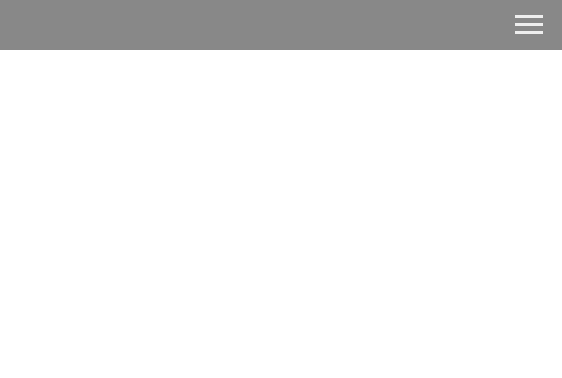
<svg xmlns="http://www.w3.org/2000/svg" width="562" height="378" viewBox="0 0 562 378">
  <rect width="100%" height="100%" fill="#fff"/>
  <path d="M0 0h562v50H0z" fill="#888"/>
  <path d="M515 23h28v3H515z" fill="#eee"/>
  <path d="M515 15h28v3H515z" fill="#eee"/>
  <path d="M515 31h28v3H515z" fill="#eee"/>
</svg>
